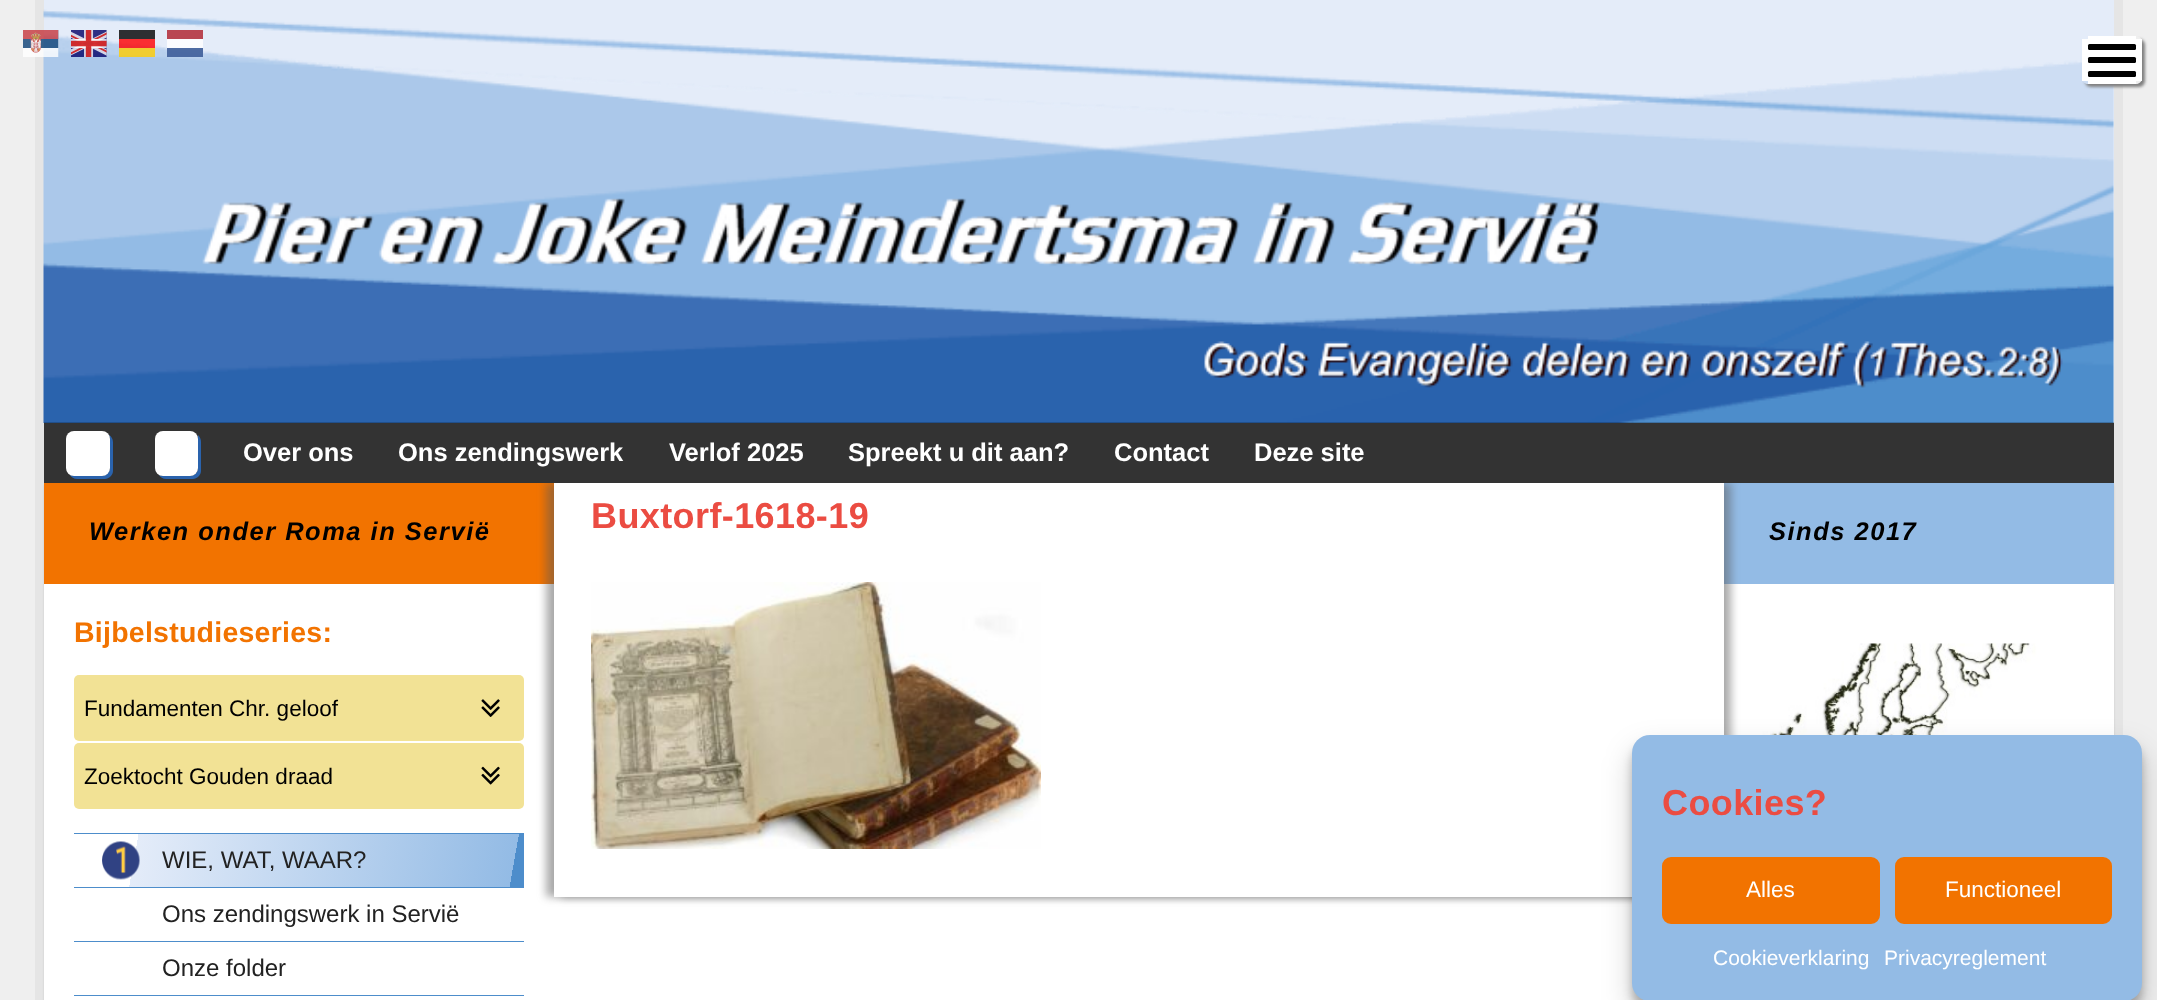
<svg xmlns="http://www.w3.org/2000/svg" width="2157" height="1000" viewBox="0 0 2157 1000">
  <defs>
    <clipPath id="clip1"><path d="M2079 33H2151V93H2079ZM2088 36H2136C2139.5 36 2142 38.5 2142 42V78C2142 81.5 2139.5 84 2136 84H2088C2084.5 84 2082 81.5 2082 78V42C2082 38.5 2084.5 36 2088 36Z" clip-rule="evenodd"/></clipPath>
    <clipPath id="clip2"><path d="M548 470H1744V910H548ZM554 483H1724V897H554Z" clip-rule="evenodd"/></clipPath>
    <clipPath id="clip3"><path d="M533 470H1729V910H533ZM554 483H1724V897H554Z" clip-rule="evenodd"/></clipPath>
    <linearGradient id="g1" gradientUnits="userSpaceOnUse" x1="82" y1="821" x2="521" y2="899"><stop offset="0" stop-color="#fff"/><stop offset="0.13" stop-color="#fff"/><stop offset="0.13" stop-color="#e4ecf9"/><stop offset="0.97" stop-color="#93bbe5"/><stop offset="0.97" stop-color="#4d8dcb"/><stop offset="1" stop-color="#4d8dcb"/></linearGradient>
  </defs>
  <rect width="100%" height="100%" fill="#efefef"/>
  <path d="M35 0h9v1000H35z" fill="#e5e5e5"/>
  <path d="M44 0h2070v423H44z" fill="#e4ecf9"/>
  <image x="43" y="9" width="2071" height="414" href="img/3.png"/>
  <image x="23" y="30" width="36" height="27" href="img/1.png"/>
  <image x="71" y="30" width="36" height="27" href="img/2.png"/>
  <path d="M119 30h36v9H119z" fill="#2e2f32"/>
  <path d="M167 30h36v9H167z" fill="#b94652"/>
  <path d="M119 39h36v9H119z" fill="#ff0000cc"/>
  <path d="M167 39h36v18H167z" fill="#ffffffcc"/>
  <path d="M119 48h36v9H119z" fill="#ffcc00cc"/>
  <path d="M167 48h36v9H167z" fill="#21468bcc"/>
  <path d="M2114 0h9v735H2114z" fill="#e5e5e5"/>
  <g clip-path="url(#clip1)">
    <rect x="2085" y="39" width="60" height="48" rx="6" fill="#808080" filter="blur(1.5px)"/>
  </g>
  <path d="M2136 39h6v42H2136z" fill="#fff"/>
  <path d="M2082 39h6v42H2082z" fill="#fff"/>
  <path d="M2088 36h48v48H2088z" fill="#fff"/>
  <rect x="2088" y="44" width="48" height="6" rx="1.5" fill="#000"/>
  <rect x="2088" y="57" width="48" height="6" rx="1.5" fill="#000"/>
  <rect x="2088" y="71" width="48" height="6" rx="1.5" fill="#000"/>
  <path d="M44 422V423H2114V482V422Z" fill="#00000033"/>
  <path d="M44 485h2070v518H44z" fill="#0000001a" filter="blur(1px)"/>
  <path d="M44 549h2070v451H44z" fill="#fff"/>
  <path d="M44 483h510v101H44z" fill="#f27300"/>
  <path d="M1724 483h390v101H1724z" fill="#93bbe5"/>
  <g clip-path="url(#clip2)">
    <path d="M561 483h1170v414H561z" fill="#57575780" filter="blur(4px)"/>
  </g>
  <g clip-path="url(#clip3)">
    <path d="M546 483h1170v414H546z" fill="#57575780" filter="blur(4px)"/>
  </g>
  <path d="M44 423h2070v60H44z" fill="#333"/>
  <path d="M70 475C71 477 74 479 77 479H105C109 479 113 475 113 471V442C113 439 111 436 109 435L110 438V468C110 472 106 476 102 476H74Z" fill="#2a63ad"/>
  <rect x="66" y="431" width="44" height="45" rx="8" fill="#fff"/>
  <path d="M159 475C160 477 163 479 166 479H193C197 479 201 475 201 471V442C201 439 200 437 198 435V438V468C198 472 195 476 190 476H162Z" fill="#2a63ad"/>
  <rect x="155" y="431" width="43" height="45" rx="8" fill="#fff"/>
  <path d="M554 483h1170v66H554z" fill="#fff"/>
  <image x="591" y="582" width="450" height="267" href="img/4.png"/>
  <rect x="74" y="675" width="450" height="66" rx="5" fill="#f2e295"/>
  <image x="481" y="699" width="19" height="18" href="img/5.png"/>
  <rect x="74" y="743" width="450" height="66" rx="5" fill="#f2e295"/>
  <image x="481" y="766" width="19" height="19" href="img/6.png"/>
  <path d="M74 833h450v163H74z" fill="#4d8dcb"/>
  <path d="M74 834h6v53H74z" fill="#fff"/>
  <path d="M80 834h439v53H80z" fill="url(#g1)"/>
  <image x="102" y="841" width="38" height="39" href="img/7.png"/>
  <path d="M74 888h450v53H74z" fill="#fff"/>
  <path d="M74 942h450v53H74z" fill="#fff"/>
  <image x="1753" y="643" width="331" height="92" href="img/8.png"/>
  <rect x="1632" y="744" width="510" height="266" rx="18" fill="#0000003b" filter="blur(4.5px)"/>
  <rect x="1632" y="750" width="510" height="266" rx="18" fill="#00000030" filter="blur(15px)"/>
  <rect x="1632" y="735" width="510" height="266" rx="18" fill="#93bbe5"/>
  <rect x="1663" y="858" width="216" height="65" rx="8" fill="#f27300" stroke="#f27300" stroke-width="2"/>
  <rect x="1896" y="858" width="215" height="65" rx="8" fill="#f27300" stroke="#f27300" stroke-width="2"/>
  <g font-family="Liberation Sans" font-size="25.5" font-weight="bold" fill="#fff">
    <text x="243" y="461">Over ons</text>
    <text x="398" y="461">Ons zendingswerk</text>
    <text x="669" y="461">Verlof 2025</text>
    <text x="848" y="461">Spreekt u dit aan?</text>
    <text x="1114" y="461">Contact</text>
    <text x="1254" y="461">Deze site</text>
  </g>
  <text x="591" y="528" font-family="Liberation Sans" font-size="36" font-weight="bold" letter-spacing="0.4" fill="#eb4c42">Buxtorf-1618-19</text>
  <text x="89" y="540" font-family="Liberation Sans" font-size="25.5" font-weight="bold" font-style="italic" letter-spacing="1.5" fill="#000">Werken onder Roma in Servië</text>
  <text x="74" y="642" font-family="Liberation Sans" font-size="28.5" font-weight="bold" letter-spacing="0.25" fill="#f27300">Bijbelstudieseries:</text>
  <g font-family="Liberation Sans" font-size="22.5" fill="#000">
    <text x="84" y="716">Fundamenten Chr. geloof</text>
    <text x="84" y="784">Zoektocht Gouden draad</text>
  </g>
  <g font-family="Liberation Sans" font-size="24" fill="#222">
    <text x="162" y="868">WIE, WAT, WAAR?</text>
    <text x="162" y="922">Ons zendingswerk in Servië</text>
    <text x="162" y="976">Onze folder</text>
  </g>
  <text x="1769" y="540" font-family="Liberation Sans" font-size="25.5" font-weight="bold" font-style="italic" letter-spacing="1.5" fill="#000">Sinds 2017</text>
  <text x="1662" y="815" font-family="Liberation Sans" font-size="36" font-weight="bold" letter-spacing="0.4" fill="#eb4c42">Cookies?</text>
  <g font-family="Liberation Sans" font-size="22.5" fill="#fff">
    <text x="1746" y="897">Alles</text>
    <text x="1945" y="897">Functioneel</text>
  </g>
  <g font-family="Liberation Sans" font-size="21" fill="#fff">
    <text x="1713" y="965">Cookieverklaring</text>
    <text x="1884" y="965">Privacyreglement</text>
  </g>
</svg>
